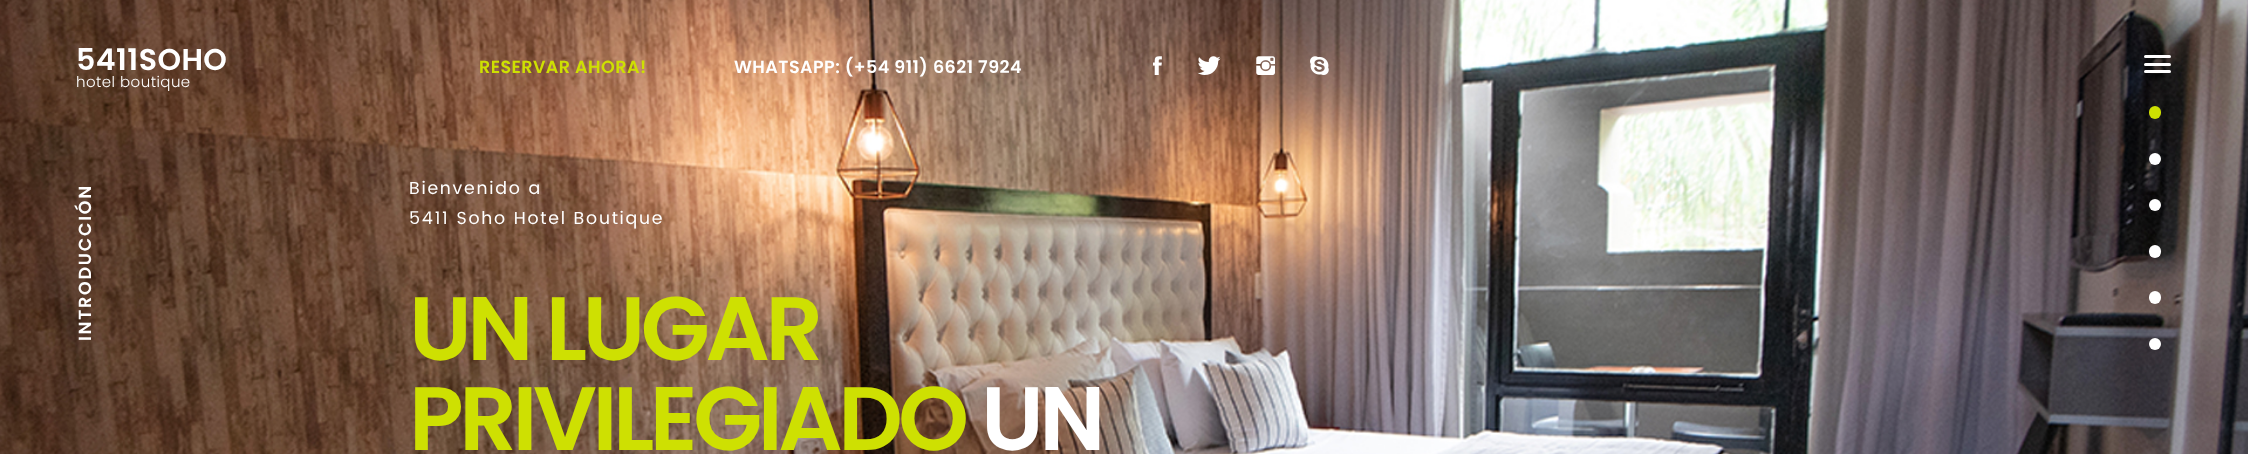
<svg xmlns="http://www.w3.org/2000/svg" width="2248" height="454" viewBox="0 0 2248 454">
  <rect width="100%" height="100%" fill="#fff"/>
  <image x="0" y="0" width="2248" height="454" href="img/5.png"/>
  <image x="1153" y="56" width="9" height="19" href="img/1.png"/>
  <image x="1197" y="56" width="24" height="19" href="img/2.png"/>
  <image x="1256" y="56" width="19" height="19" href="img/3.png"/>
  <image x="1310" y="56" width="19" height="19" href="img/4.png"/>
  <rect x="2144" y="55" width="27" height="3" rx="1.5" fill="#fff"/>
  <rect x="2144" y="63" width="27" height="3" rx="1.5" fill="#fff"/>
  <rect x="2144" y="70" width="27" height="3" rx="1.5" fill="#fff"/>
  <rect x="2149" y="106" width="12" height="13" rx="6" fill="#cee002"/>
  <circle cx="2155" cy="159" r="6" fill="#fff"/>
  <circle cx="2155" cy="205" r="6" fill="#fff"/>
  <rect x="2149" y="245" width="12" height="13" rx="6" fill="#fff"/>
  <rect x="2149" y="291" width="12" height="13" rx="6" fill="#fff"/>
  <circle cx="2155" cy="344" r="6" fill="#fff"/>
  <text x="76" y="70" font-family="Poppins" font-size="30" font-weight="600" letter-spacing="0.45" fill="#fff">5411SOHO</text>
  <text x="76" y="87" font-family="Poppins" font-size="15" font-weight="300" letter-spacing="0.45" fill="#fff">hotel boutique</text>
  <text x="479" y="73" font-family="Poppins" font-size="17.5" font-weight="600" letter-spacing="0.45" fill="#cee002">RESERVAR AHORA!</text>
  <text x="734" y="73" font-family="Poppins" font-size="17.5" font-weight="600" letter-spacing="0.45" fill="#fff">WHATSAPP: (+54 911) 6621 7924</text>
  <text x="91" y="341" transform="rotate(-90 91 341)" font-family="Poppins" font-size="17.5" font-weight="600" letter-spacing="1.75" fill="#fff">INTRODUCCIÓN</text>
  <g font-family="Poppins" font-size="17.5" letter-spacing="1.75" fill="#fff">
    <text x="409" y="194">Bienvenido a</text>
    <text x="409" y="224">5411 Soho Hotel Boutique</text>
  </g>
  <g font-family="Poppins" font-size="90" font-weight="600" letter-spacing="-4.5" fill="#cee002">
    <text x="409" y="360">UN LUGAR</text>
    <text x="409" y="450">PRIVILEGIADO</text>
  </g>
  <text x="981" y="450" font-family="Poppins" font-size="90" font-weight="600" letter-spacing="-4.5" fill="#fff">UN</text>
</svg>
